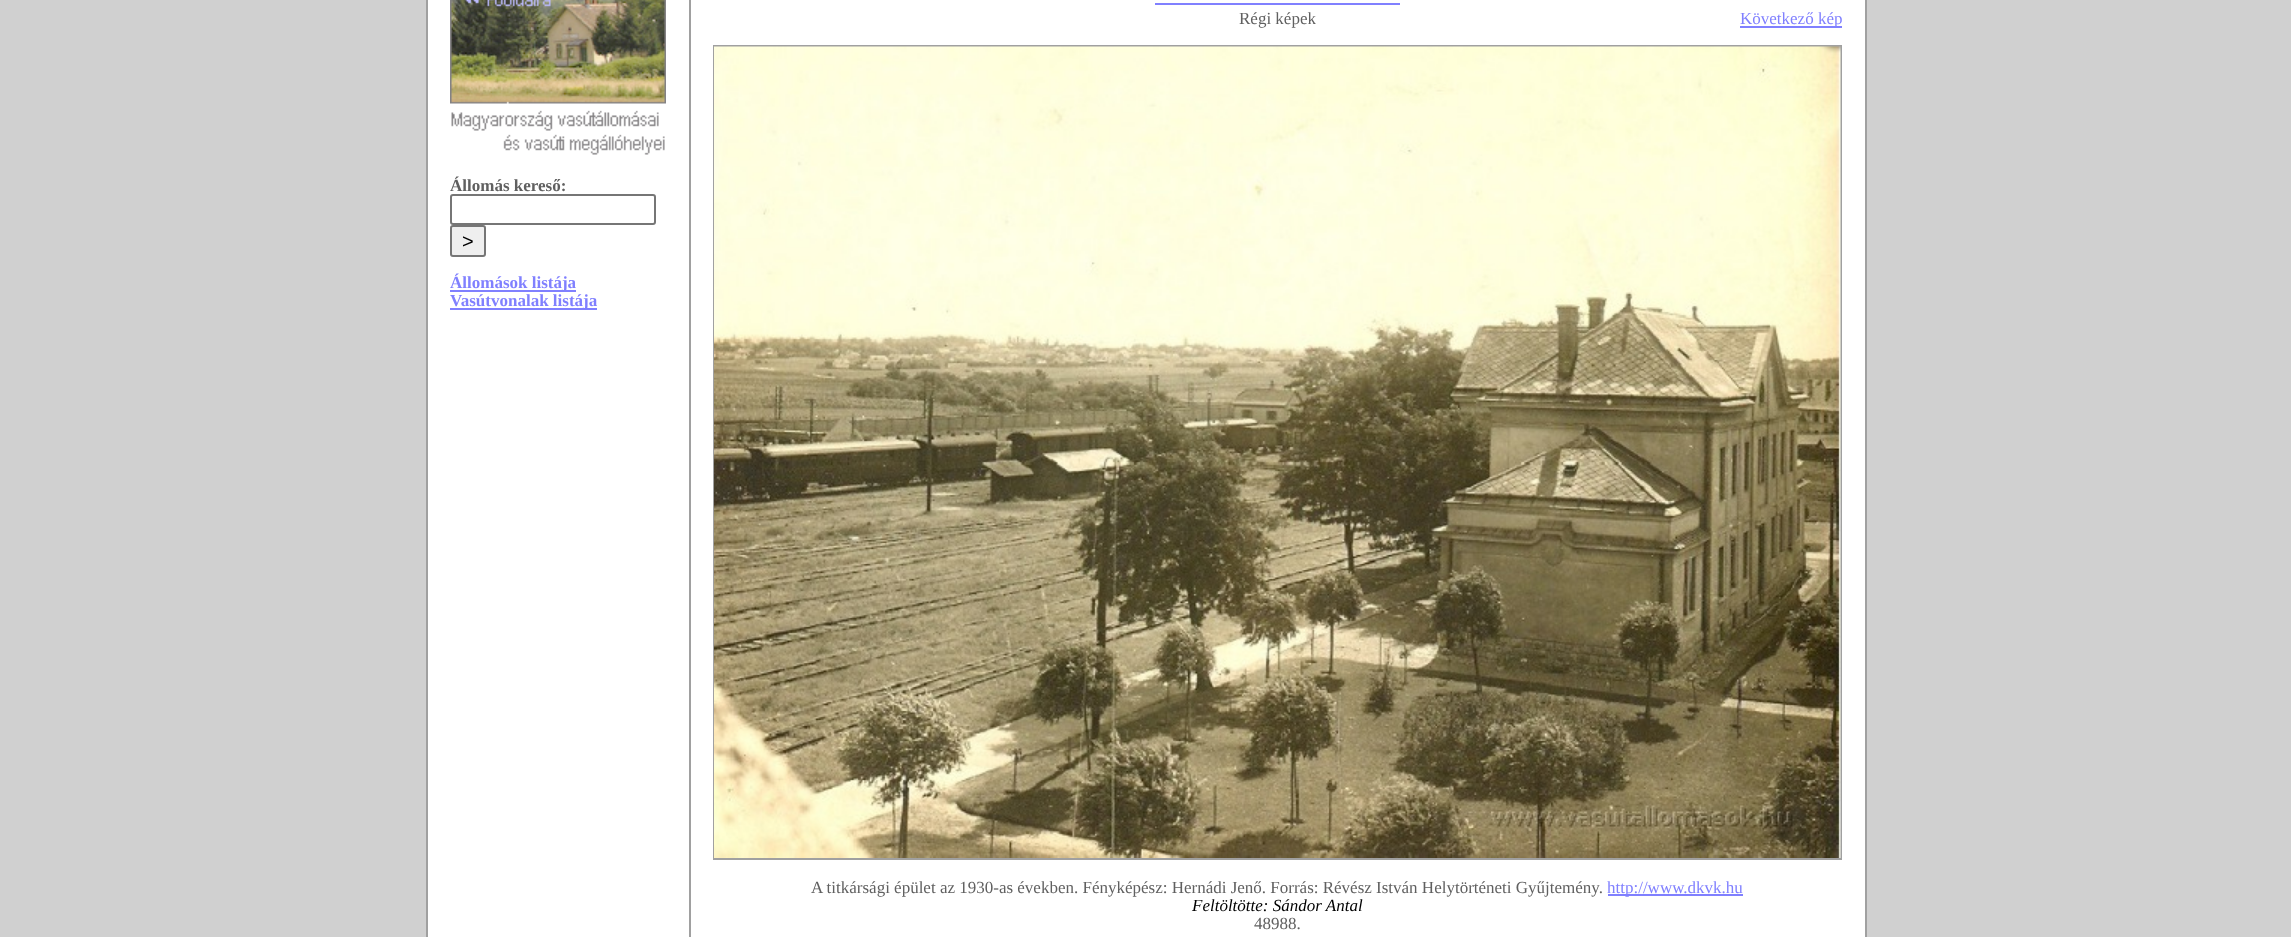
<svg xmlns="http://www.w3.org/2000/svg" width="2291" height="937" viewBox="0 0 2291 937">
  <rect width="100%" height="100%" fill="#d0d0d0"/>
  <path d="M428 0h1437v937H428z" fill="#fff"/>
  <path d="M426 0h2v937H426z" fill="#a0a0a0"/>
  <image x="450" y="0" width="216" height="155" href="img/1.png"/>
  <rect x="451" y="195" width="204" height="29" rx="2" fill="none" stroke="#767676" stroke-width="2"/>
  <rect x="451" y="226" width="34" height="30" rx="2" fill="#efefef" stroke="#767676" stroke-width="2"/>
  <path d="M450 290h126v2H450z" fill="#8080ff"/>
  <path d="M450 308h147v2H450z" fill="#8080ff"/>
  <path d="M1865 0h2v937H1865z" fill="#a0a0a0"/>
  <path d="M689 0h2v937H689z" fill="#a0a0a0"/>
  <path d="M1155 3h245v2H1155z" fill="#8080ff"/>
  <path d="M1740 26h102v2H1740z" fill="#8080ff"/>
  <path d="M714 46h1127v813H714z" fill="none" stroke="#a0a0a0" stroke-width="2"/>
  <image x="714" y="46" width="1127" height="812" href="img/2.png"/>
  <path d="M1608 894h135v2H1608z" fill="#8080ff"/>
  <text x="450" y="191" font-family="Liberation Serif" font-size="17" font-weight="bold" fill="#606060">Állomás kereső:</text>
  <text x="462" y="248" font-family="Liberation Sans" font-size="20" fill="#000">&gt;</text>
  <g font-family="Liberation Serif" font-size="17" font-weight="bold" fill="#8080ff">
    <text x="450" y="288">Állomások listája</text>
    <text x="450" y="306">Vasútvonalak listája</text>
  </g>
  <text x="1239" y="24" font-family="Liberation Serif" font-size="17" fill="#606060">Régi képek</text>
  <text x="1740" y="24" font-family="Liberation Serif" font-size="17" fill="#8080ff">Következő kép</text>
  <text x="811" y="893" font-family="Liberation Serif" font-size="17" fill="#606060">A titkársági épület az 1930-as években. Fényképész: Hernádi Jenő. Forrás: Révész István Helytörténeti Gyűjtemény.</text>
  <text x="1607" y="893" font-family="Liberation Serif" font-size="17" fill="#8080ff">http://www.dkvk.hu</text>
  <text x="1192" y="911" font-family="Liberation Serif" font-size="17" font-style="italic" fill="#000">Feltöltötte: Sándor Antal</text>
  <text x="1254" y="929" font-family="Liberation Serif" font-size="17" fill="#606060">48988.</text>
</svg>
